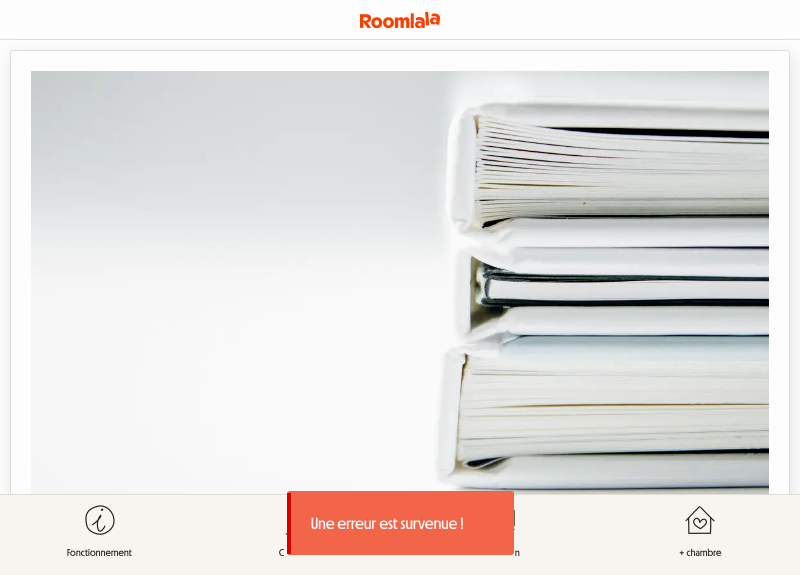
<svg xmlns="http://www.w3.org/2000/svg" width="800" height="575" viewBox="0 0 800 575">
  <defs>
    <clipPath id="clip1"><path d="M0 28H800V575H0ZM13 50H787C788.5 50 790 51.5 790 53V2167C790 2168.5 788.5 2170 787 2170H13C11.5 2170 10 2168.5 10 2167V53C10 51.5 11.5 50 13 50Z" clip-rule="evenodd"/></clipPath>
  </defs>
  <rect width="100%" height="100%" fill="#fdfdfd"/>
  <g clip-path="url(#clip1)">
    <rect x="12" y="55" width="780" height="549" rx="3" fill="#0000001a" filter="blur(8.5px)"/>
  </g>
  <rect x="10.5" y="50.5" width="779" height="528" rx="2.5" fill="none" stroke="#e0ddd4"/>
  <image x="31" y="71" width="738" height="423" href="img/2.png"/>
  <path d="M0 495h800v80H0z" fill="#f7f5f0"/>
  <path d="M0 494h800v1H0z" fill="#e0ddd4"/>
  <rect x="287" y="491" width="227" height="64" rx="3" fill="#f26548"/>
  <path d="M287 493h4v61H287z" fill="#d70000"/>
  <path d="M21 38h762v1H21z" fill="#fff"/>
  <path d="M0 39h800v1H0z" fill="#e0ddd4"/>
  <image x="360" y="11" width="80" height="18" href="img/1.png"/>
  <image x="85" y="505" width="30" height="30" href="img/3.png"/>
  <image x="285" y="533" width="2" height="2" href="img/4.png"/>
  <image x="514" y="509" width="1" height="21" href="img/5.png"/>
  <image x="685" y="506" width="30" height="28" href="img/6.png"/>
  <text x="311" y="529" font-family="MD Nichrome" font-size="16" letter-spacing="0.15" fill="#fdfdfd">Une erreur est survenue !</text>
  <g font-family="MD Nichrome" font-size="10" letter-spacing="0.15" fill="#242322">
    <text x="67" y="556">Fonctionnement</text>
    <text x="279" y="556">C</text>
    <text x="515" y="556">n</text>
    <text x="679" y="556">+ chambre</text>
  </g>
</svg>
